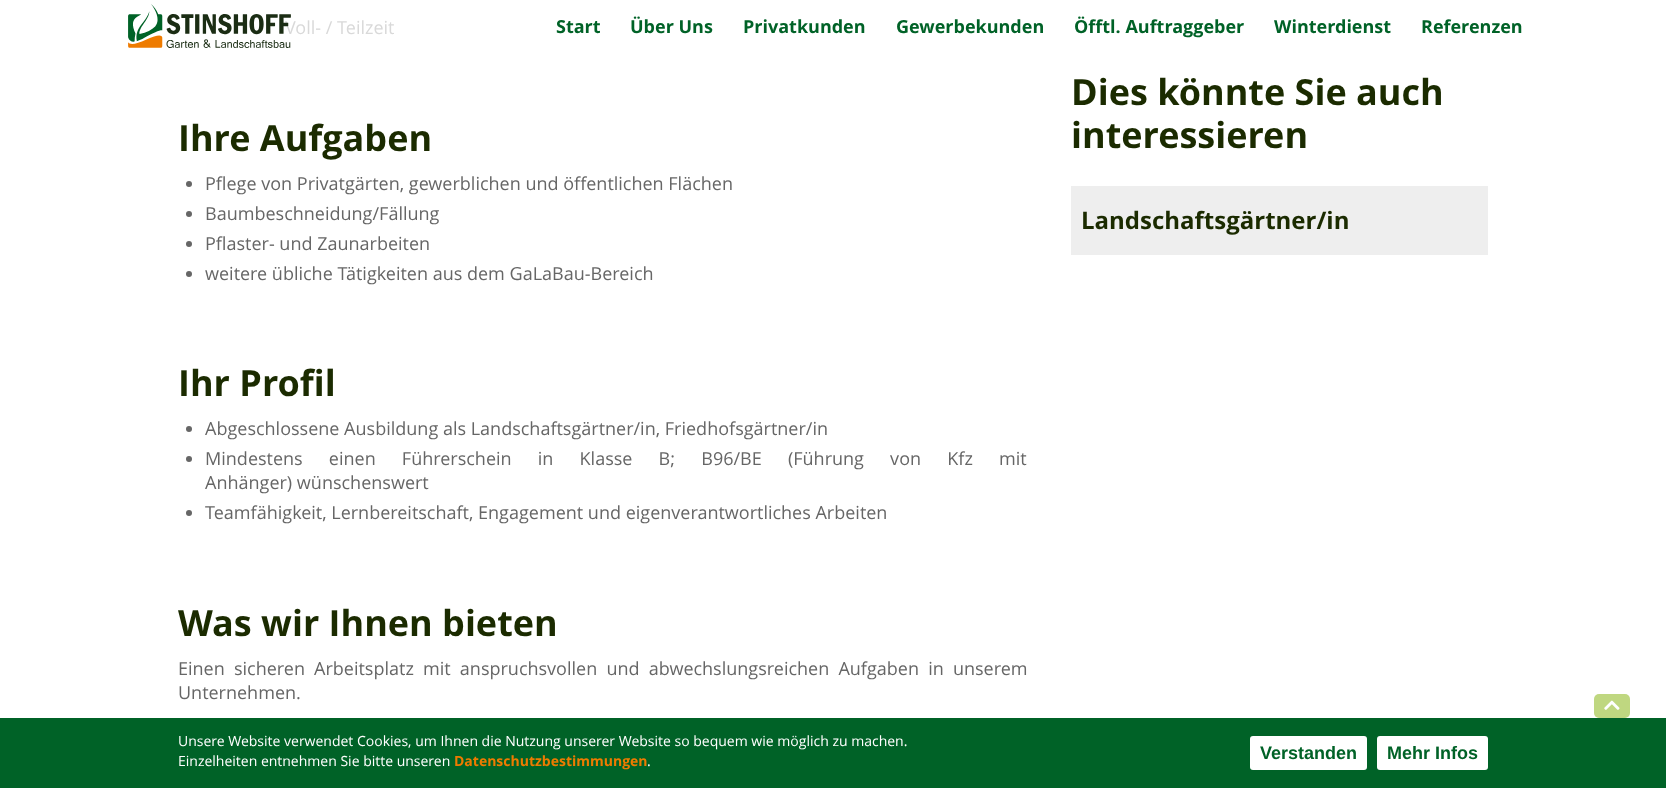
<svg xmlns="http://www.w3.org/2000/svg" width="1666" height="788" viewBox="0 0 1666 788">
  <rect width="100%" height="100%" fill="#fff"/>
  <circle cx="189" cy="184" r="3" fill="#666"/>
  <circle cx="189" cy="214" r="3" fill="#666"/>
  <circle cx="189" cy="244" r="3" fill="#666"/>
  <circle cx="189" cy="274" r="3" fill="#666"/>
  <circle cx="189" cy="429" r="3" fill="#666"/>
  <circle cx="189" cy="459" r="3" fill="#666"/>
  <circle cx="189" cy="513" r="3" fill="#666"/>
  <path d="M1071 186h417v69H1071z" fill="#eee"/>
  <rect x="1594" y="694" width="36" height="24" rx="5" fill="#bfd780"/>
  <image x="1604" y="700" width="16" height="10" href="img/2.png"/>
  <path d="M0 718h1666v70H0z" fill="#006227"/>
  <rect x="1250" y="736" width="117" height="34" rx="3" fill="#fff"/>
  <rect x="1377" y="736" width="111" height="34" rx="3" fill="#fff"/>
  <g font-family="Open Sans" font-size="18" font-weight="bold" fill="#006227">
    <text x="556" y="33">Start</text>
    <text x="630" y="33">Über Uns</text>
    <text x="743" y="33">Privatkunden</text>
    <text x="896" y="33">Gewerbekunden</text>
    <text x="1074" y="33">Öfftl. Auftraggeber</text>
    <text x="1274" y="33">Winterdienst</text>
    <text x="1421" y="33">Referenzen</text>
  </g>
  <text x="285" y="34" font-family="Open Sans" font-size="18" fill="#d9d9d9">Voll- / Teilzeit</text>
  <image x="128" y="4" width="163" height="44" href="img/1.png"/>
  <text x="178" y="151" font-family="Open Sans" font-size="36" font-weight="bold" fill="#1b2b00">Ihre Aufgaben</text>
  <g font-family="Open Sans" font-size="18" fill="#666">
    <text x="205" y="190">Pflege von Privatgärten, gewerblichen und öffentlichen Flächen</text>
    <text x="205" y="220">Baumbeschneidung/Fällung</text>
    <text x="205" y="250">Pflaster- und Zaunarbeiten</text>
    <text x="205" y="280">weitere übliche Tätigkeiten aus dem GaLaBau-Bereich</text>
  </g>
  <text x="178" y="396" font-family="Open Sans" font-size="36" font-weight="bold" fill="#1b2b00">Ihr Profil</text>
  <g font-family="Open Sans" font-size="18" fill="#666">
    <text x="205" y="435">Abgeschlossene Ausbildung als Landschaftsgärtner/in, Friedhofsgärtner/in</text>
    <text x="205" y="465" word-spacing="21.5">Mindestens einen Führerschein in Klasse B; B96/BE (Führung von Kfz mit</text>
    <text x="205" y="489">Anhänger) wünschenswert</text>
    <text x="205" y="519">Teamfähigkeit, Lernbereitschaft, Engagement und eigenverantwortliches Arbeiten</text>
  </g>
  <text x="178" y="636" font-family="Open Sans" font-size="36" font-weight="bold" fill="#1b2b00">Was wir Ihnen bieten</text>
  <g font-family="Open Sans" font-size="18" fill="#666">
    <text x="178" y="675" word-spacing="4.5">Einen sicheren Arbeitsplatz mit anspruchsvollen und abwechslungsreichen Aufgaben in unserem</text>
    <text x="178" y="699">Unternehmen.</text>
  </g>
  <g font-family="Open Sans" font-size="36" font-weight="bold" fill="#1b2b00">
    <text x="1071" y="105">Dies könnte Sie auch</text>
    <text x="1071" y="148">interessieren</text>
  </g>
  <text x="1081" y="229" font-family="Open Sans" font-size="24" font-weight="bold" fill="#1b2b00">Landschaftsgärtner/in</text>
  <g font-family="Open Sans" font-size="14" fill="#fff">
    <text x="178" y="746">Unsere Website verwendet Cookies, um Ihnen die Nutzung unserer Website so bequem wie möglich zu machen.</text>
    <text x="178" y="766">Einzelheiten entnehmen Sie bitte unseren</text>
  </g>
  <text x="454" y="766" font-family="Open Sans" font-size="14" font-weight="bold" fill="#ee7b00">Datenschutzbestimmungen</text>
  <text x="647" y="766" font-family="Open Sans" font-size="14" fill="#fff">.</text>
  <g font-family="Liberation Sans" font-size="18" font-weight="bold" fill="#006227">
    <text x="1260" y="759">Verstanden</text>
    <text x="1387" y="759">Mehr Infos</text>
  </g>
</svg>
